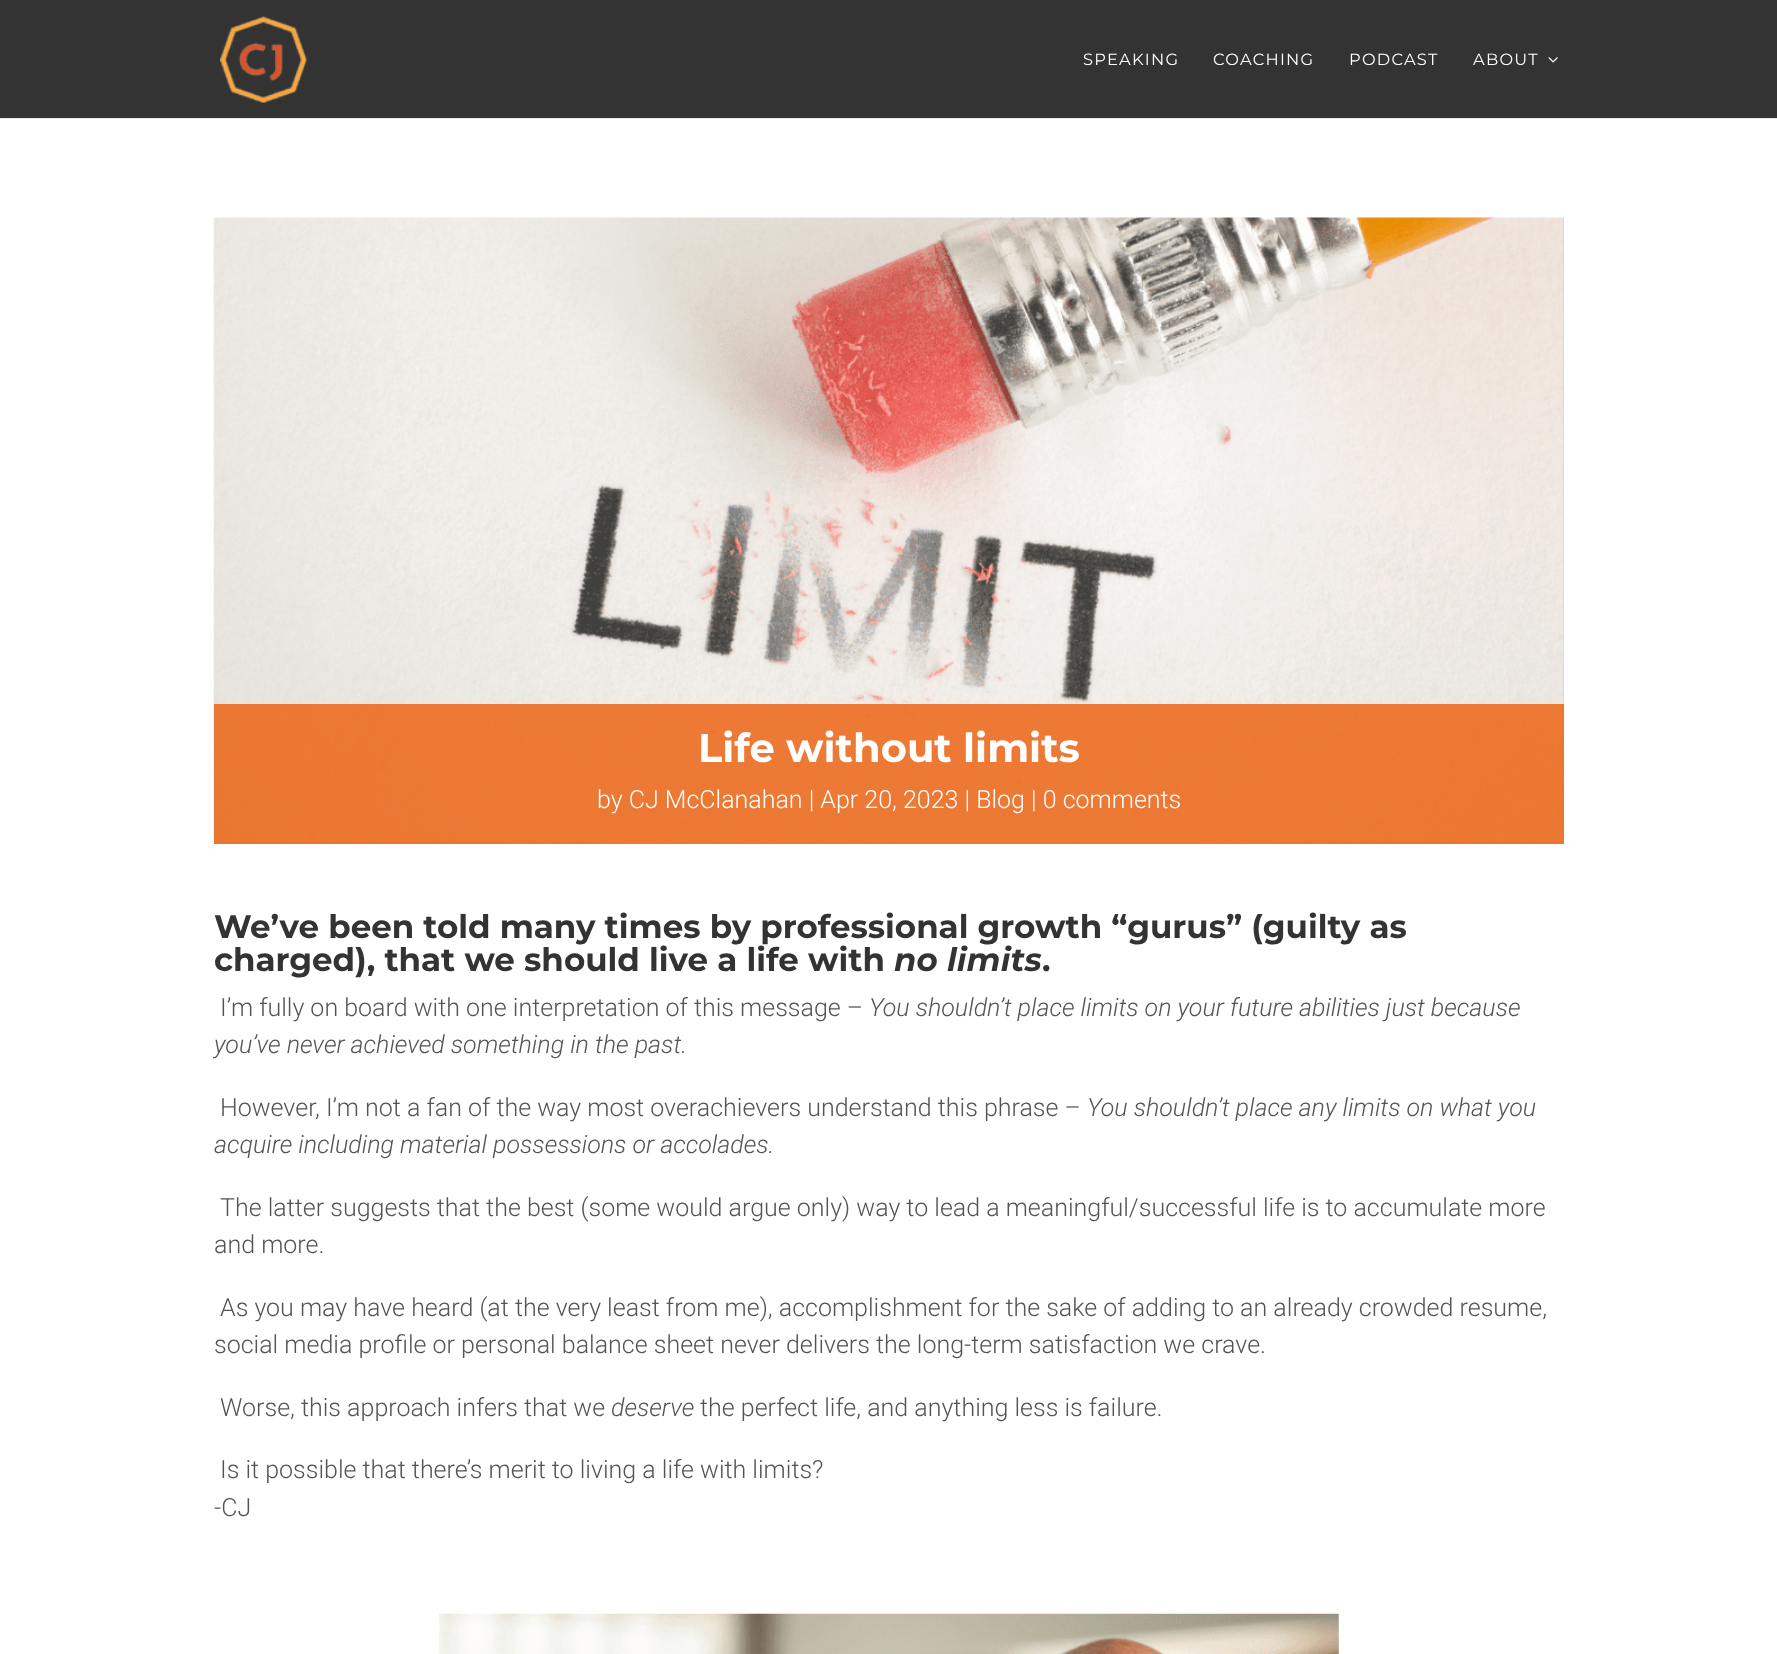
<svg xmlns="http://www.w3.org/2000/svg" width="1777" height="1654" viewBox="0 0 1777 1654">
  <rect width="100%" height="100%" fill="#fff"/>
  <path d="M0 118V119H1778V1V118Z" fill="#e6e6e6"/>
  <path d="M0 0h1777v118H0z" fill="#333"/>
  <image x="220" y="16" width="88" height="87" href="img/1.png"/>
  <image x="1548" y="57" width="10" height="6" href="img/2.png"/>
  <path d="M214 218h1350v626H214z" fill="#afafaf"/>
  <image x="213" y="217" width="1351" height="627" href="img/3.png"/>
  <path d="M214 704h1350v140H214z" fill="#ec5902c7"/>
  <image x="438" y="1613" width="901" height="41" href="img/4.png"/>
  <g font-family="'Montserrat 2'" font-size="16.25" font-weight="100" letter-spacing="1.25" fill="#fff">
    <text x="1083" y="65">SPEAKING</text>
    <text x="1213" y="65">COACHING</text>
    <text x="1349" y="65">PODCAST</text>
    <text x="1473" y="65">ABOUT</text>
  </g>
  <text x="698" y="762" font-family="Montserrat" font-size="40" font-weight="100" fill="#fff">Life without limits</text>
  <text x="597" y="808" font-family="Roboto" font-size="25" font-weight="300" fill="#fff">by CJ McClanahan | Apr 20, 2023 | Blog | 0 comments</text>
  <g font-family="Montserrat" font-size="32.5" font-weight="100" fill="#333">
    <text x="214" y="938">We’ve been told many times by professional growth “gurus” (guilty as</text>
    <text x="214" y="971">charged), that we should live a life with</text>
  </g>
  <text x="894" y="971" font-family="Montserrat" font-size="32.5" font-weight="100" font-style="italic" fill="#333">no limits</text>
  <text x="1042" y="971" font-family="Montserrat" font-size="32.5" font-weight="100" fill="#333">.</text>
  <text x="220" y="1016" font-family="Roboto" font-size="25" font-weight="300" fill="#545454">I’m fully on board with one interpretation of this message –</text>
  <g font-family="Roboto" font-size="25" font-weight="300" font-style="italic" fill="#545454">
    <text x="869" y="1016">You shouldn’t place limits on your future abilities just because</text>
    <text x="214" y="1053">you’ve never achieved something in the past.</text>
  </g>
  <text x="220" y="1116" font-family="Roboto" font-size="25" font-weight="300" fill="#545454">However, I’m not a fan of the way most overachievers understand this phrase –</text>
  <g font-family="Roboto" font-size="25" font-weight="300" font-style="italic" fill="#545454">
    <text x="1087" y="1116">You shouldn’t place any limits on what you</text>
    <text x="214" y="1153">acquire including material possessions or accolades.</text>
  </g>
  <g font-family="Roboto" font-size="25" font-weight="300" fill="#545454">
    <text x="220" y="1216">The latter suggests that the best (some would argue only) way to lead a meaningful/successful life is to accumulate more</text>
    <text x="214" y="1253">and more.</text>
    <text x="220" y="1316">As you may have heard (at the very least from me), accomplishment for the sake of adding to an already crowded resume,</text>
    <text x="214" y="1353">social media profile or personal balance sheet never delivers the long-term satisfaction we crave.</text>
    <text x="220" y="1416">Worse, this approach infers that we</text>
  </g>
  <text x="611" y="1416" font-family="Roboto" font-size="25" font-weight="300" font-style="italic" fill="#545454">deserve</text>
  <g font-family="Roboto" font-size="25" font-weight="300" fill="#545454">
    <text x="700" y="1416">the perfect life, and anything less is failure.</text>
    <text x="220" y="1478">Is it possible that there’s merit to living a life with limits?</text>
    <text x="214" y="1516">-CJ</text>
  </g>
</svg>
